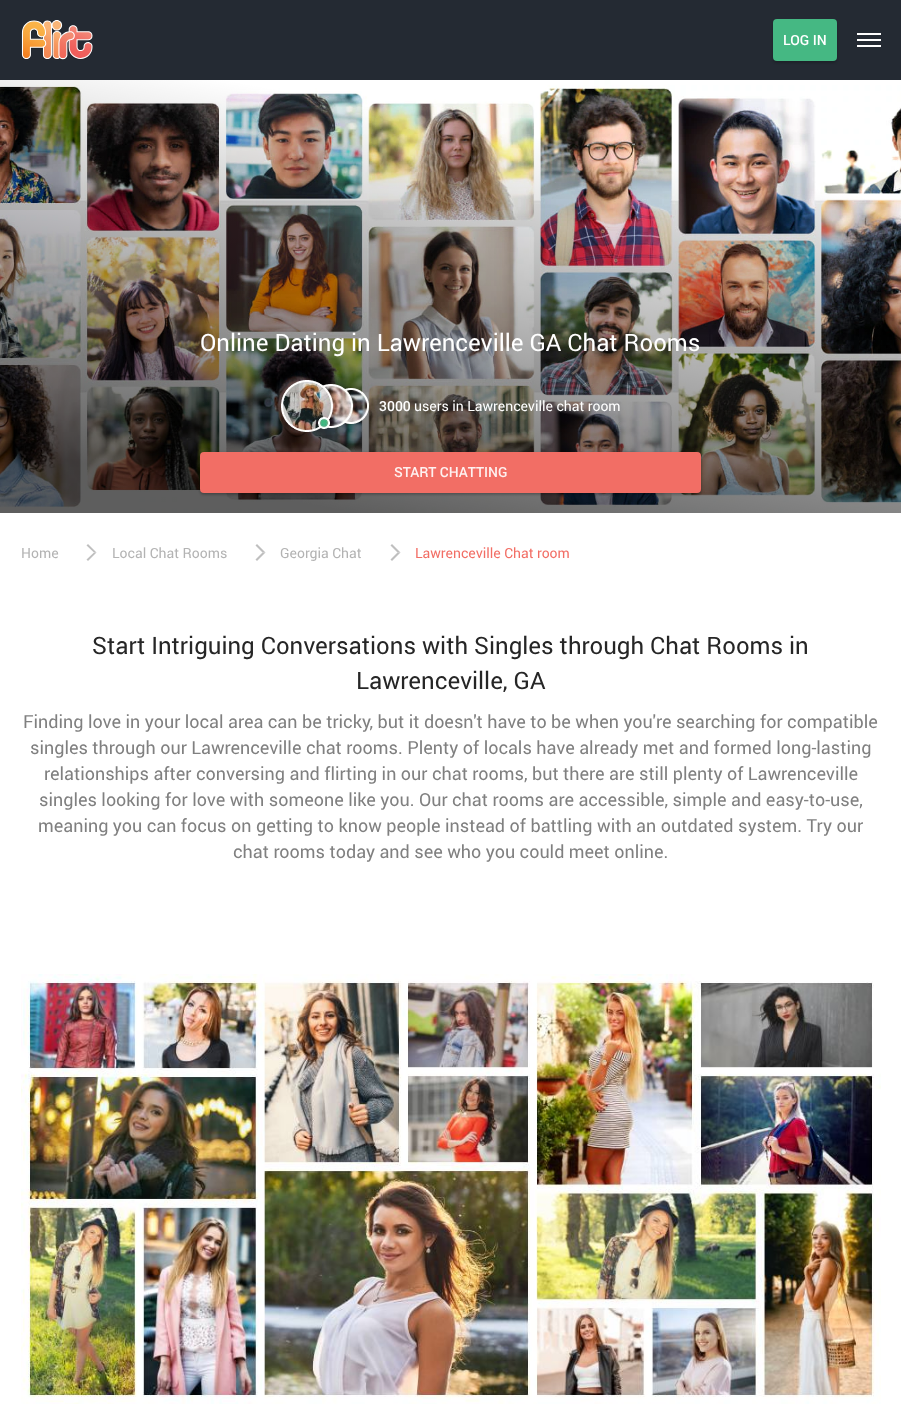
<svg xmlns="http://www.w3.org/2000/svg" width="901" height="1428" viewBox="0 0 901 1428">
  <rect width="100%" height="100%" fill="#fff"/>
  <path d="M0 0h901v80H0z" fill="#242a33"/>
  <image x="21" y="20" width="72" height="40" href="img/1.png"/>
  <rect x="773" y="21" width="64" height="42" rx="4" fill="#00000033" filter="blur(1px)"/>
  <rect x="773" y="19" width="64" height="42" rx="4" fill="#45b883"/>
  <path d="M857 33h24v2H857z" fill="#fff"/>
  <path d="M857 39h24v2H857z" fill="#fff"/>
  <path d="M857 45h24v2H857z" fill="#fff"/>
  <image x="0" y="80" width="901" height="433" href="img/2.png"/>
  <image x="281" y="380" width="88" height="52" href="img/3.png"/>
  <rect x="200" y="452" width="501" height="41" rx="4" fill="#0000001a" filter="blur(1px)"/>
  <rect x="200" y="454" width="501" height="41" rx="4" fill="#00000033" filter="blur(1px)"/>
  <rect x="200" y="452" width="501" height="41" rx="4" fill="#f26e65"/>
  <path d="M88 544L96.5 552.5H94L86.5 545.5Z" fill="#bfbfbf"/>
  <path d="M96.5 552.5L88 561L86.5 559.5L94 552.5Z" fill="#bfbfbf"/>
  <path d="M257 544L265.5 552.5H262.5L255.5 545.5Z" fill="#bfbfbf"/>
  <path d="M265.5 552.5L257 561L255.5 559.5L262.5 552.5Z" fill="#bfbfbf"/>
  <path d="M392 544L400.5 552.5H397.5L390.5 545.5Z" fill="#bfbfbf"/>
  <path d="M400.5 552.5L392 561L390.5 559.5L397.5 552.5Z" fill="#bfbfbf"/>
  <image x="21" y="974" width="860" height="430" href="img/4.png"/>
  <text x="783" y="45" font-family="Roboto" font-size="14" font-weight="500" fill="#fff">LOG IN</text>
  <text x="200" y="351" font-family="Roboto" font-size="24" fill="#fff">Online Dating in Lawrenceville GA Chat Rooms</text>
  <text x="379" y="411" font-family="Roboto" font-size="14" font-weight="500" fill="#fff">3000</text>
  <text x="414" y="411" font-family="Roboto" font-size="14" fill="#fff">users in Lawrenceville chat room</text>
  <text x="394" y="477" font-family="Roboto" font-size="14" font-weight="500" fill="#fef1f0">START CHATTING</text>
  <g font-family="Roboto" font-size="14" fill="#b3b3b3">
    <text x="21" y="558">Home</text>
    <text x="112" y="558">Local Chat Rooms</text>
    <text x="280" y="558">Georgia Chat</text>
  </g>
  <text x="415" y="558" font-family="Roboto" font-size="14" fill="#f26e65">Lawrenceville Chat room</text>
  <g font-family="Roboto" font-size="24" fill="#262626">
    <text x="92" y="654">Start Intriguing Conversations with Singles through Chat Rooms in</text>
    <text x="356" y="689">Lawrenceville, GA</text>
  </g>
  <g font-family="Roboto" font-size="18" fill="#808080">
    <text x="23" y="728">Finding love in your local area can be tricky, but it doesn't have to be when you're searching for compatible</text>
    <text x="30" y="754">singles through our Lawrenceville chat rooms. Plenty of locals have already met and formed long-lasting</text>
    <text x="44" y="780">relationships after conversing and flirting in our chat rooms, but there are still plenty of Lawrenceville</text>
    <text x="39" y="806">singles looking for love with someone like you. Our chat rooms are accessible, simple and easy-to-use,</text>
    <text x="38" y="832">meaning you can focus on getting to know people instead of battling with an outdated system. Try our</text>
    <text x="233" y="858">chat rooms today and see who you could meet online.</text>
  </g>
</svg>
